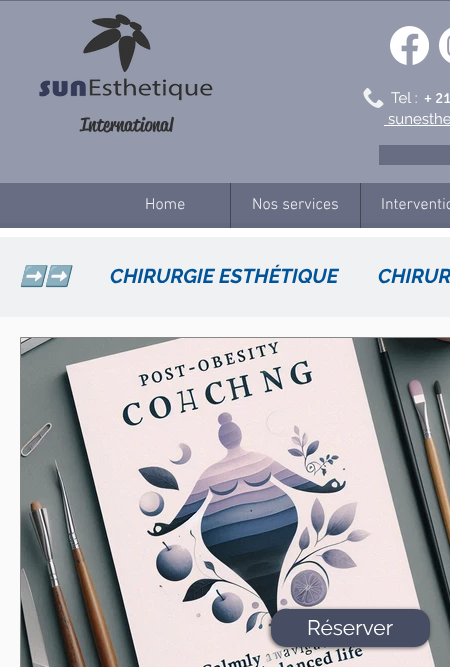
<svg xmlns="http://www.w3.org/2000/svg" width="450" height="667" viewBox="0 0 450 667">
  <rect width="100%" height="100%" fill="#fff"/>
  <path d="M0 0h450v223H0z" fill="#696d83"/>
  <path d="M0 223h450v5H0z" fill="#646a7d"/>
  <path d="M0 1h450v182H0z" fill="#9599ac"/>
  <image x="39" y="14" width="174" height="87" href="img/1.png"/>
  <image x="390" y="26" width="39" height="39" href="img/2.png"/>
  <image x="439" y="28" width="11" height="35" href="img/3.png"/>
  <image x="363" y="88" width="21" height="20" href="img/4.png"/>
  <path d="M384 125h66v1H384z" fill="#fff"/>
  <path d="M379 145h71v20H379z" fill="#696d83"/>
  <path d="M230 183h1v45H230z" fill="#424653"/>
  <path d="M360 183h1v45H360z" fill="#424653"/>
  <path d="M0 317h450v350H0z" fill="#fafafa"/>
  <path d="M0 237h450v80H0z" fill="#f0f1f2"/>
  <path d="M20.5 337.5h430v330H20.5z" fill="none" stroke="#878787"/>
  <image x="21" y="338" width="429" height="329" href="img/5.png"/>
  <rect x="270" y="610" width="159" height="38" rx="15" fill="#00000099" filter="blur(2px)"/>
  <rect x="271" y="609" width="159" height="38" rx="15" fill="#474d62"/>
  <text x="80" y="131" font-family="'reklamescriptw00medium'" font-size="19" font-weight="500" fill="#303030">International</text>
  <text x="391" y="103" font-family="Raleway" font-size="15" fill="#fff">Tel :</text>
  <text x="424" y="103" font-family="Signika" font-size="15" fill="#fff">+ 21</text>
  <text x="388" y="124" font-family="Raleway" font-size="15" fill="#fff">sunesthe</text>
  <g font-family="'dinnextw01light'" font-size="16" font-weight="300" fill="#f0f1f2">
    <text x="145" y="209">Home</text>
    <text x="252" y="209">Nos services</text>
    <text x="381" y="209">Interventio</text>
  </g>
  <text x="20" y="283" font-family="Noto Color Emoji" font-size="20" font-weight="bold" font-style="italic" fill="#025499">➡️➡️</text>
  <g font-family="Raleway" font-size="20" font-weight="bold" font-style="italic" fill="#025499">
    <text x="110" y="283">CHIRURGIE ESTHÉTIQUE</text>
    <text x="378" y="283">CHIRUR</text>
  </g>
  <text x="307" y="635" font-family="Raleway" font-size="21" fill="#fff">Réserver</text>
</svg>
